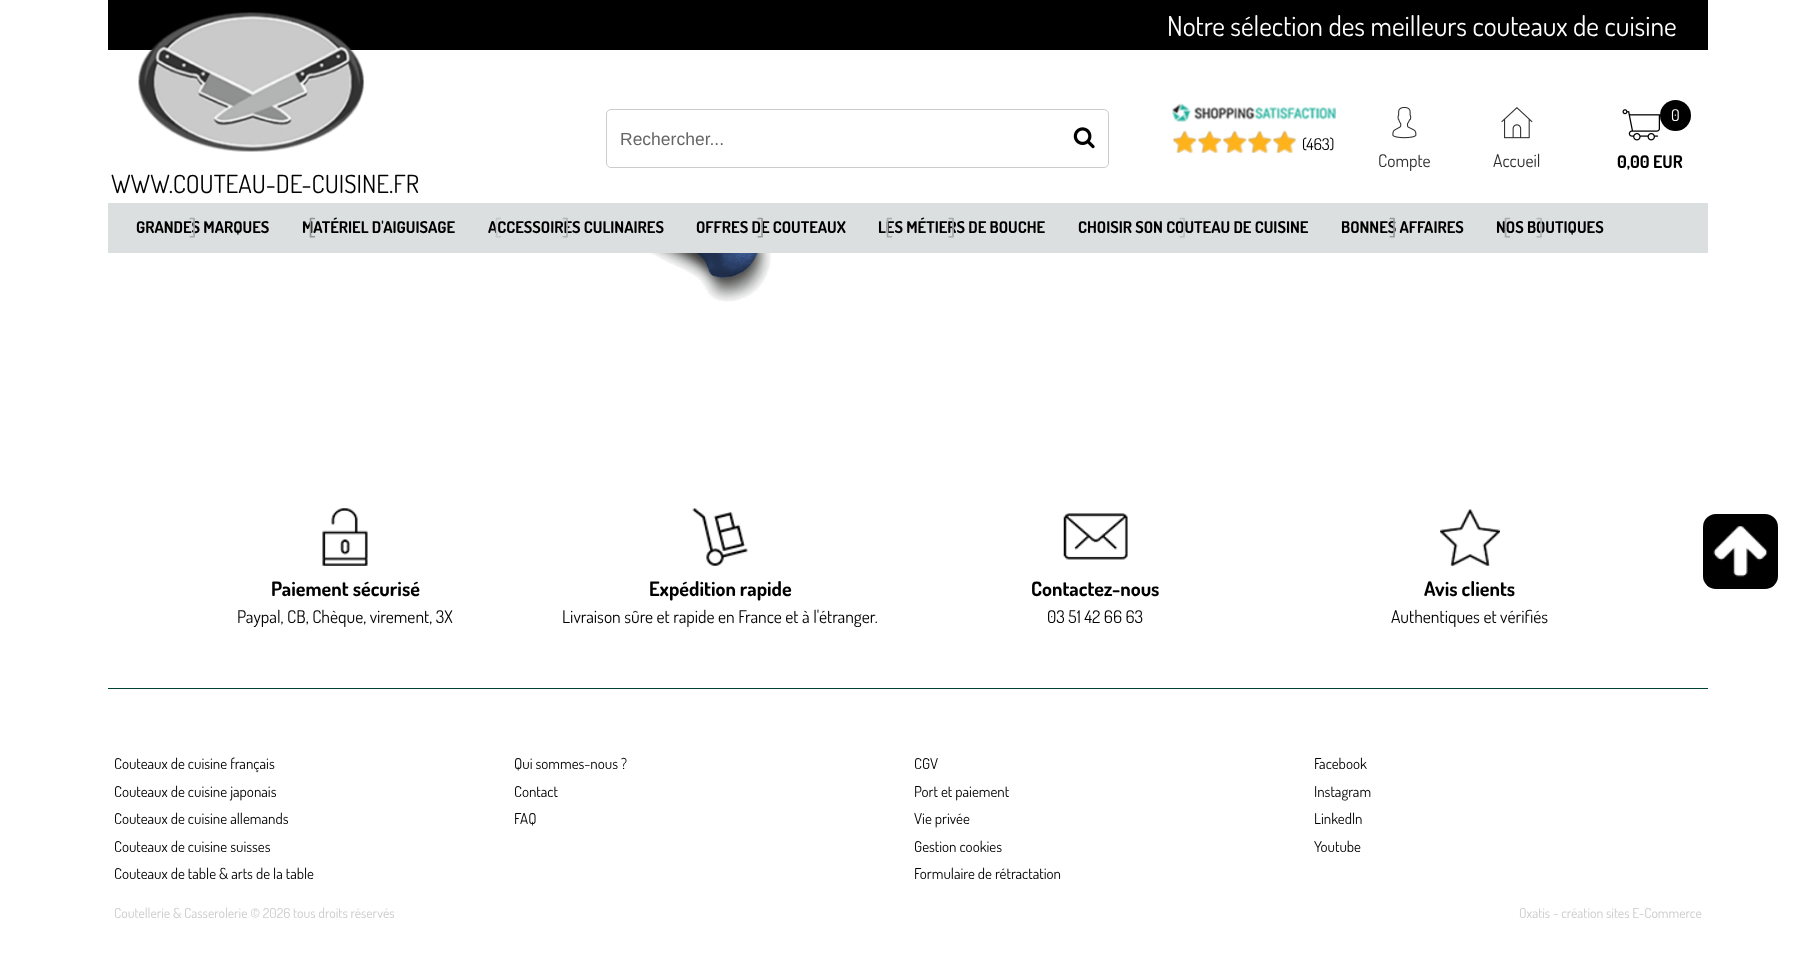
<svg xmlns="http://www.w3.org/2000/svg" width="1814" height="963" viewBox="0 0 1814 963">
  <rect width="100%" height="100%" fill="#fff"/>
  <path d="M108 0h1600v50H108z" fill="#000"/>
  <rect x="606.5" y="109.5" width="502" height="58" rx="4.5" fill="none" stroke="#ccc"/>
  <image x="1073" y="127" width="22" height="22" href="img/1.png"/>
  <image x="1172" y="103" width="164" height="19" href="img/2.png"/>
  <image x="1173" y="130" width="124" height="23" href="img/3.png"/>
  <image x="1173" y="130" width="123" height="23" href="img/4.png"/>
  <image x="1622" y="109" width="38" height="32" href="img/5.png"/>
  <circle cx="1675.5" cy="115.5" r="15.5" fill="#000"/>
  <image x="1392" y="106" width="25" height="33" href="img/6.png"/>
  <image x="1501" y="107" width="32" height="32" href="img/7.png"/>
  <image x="138" y="12" width="227" height="140" href="img/8.png"/>
  <path d="M108 203h1600v50H108z" fill="#dcdfdf"/>
  <image x="281" y="253" width="490" height="49" href="img/9.png"/>
  <rect x="1703" y="514" width="75" height="75" rx="13" fill="#000"/>
  <image x="1713" y="526" width="55" height="51" href="img/10.png"/>
  <path d="M108 688h1600v1H108z" fill="#004137"/>
  <image x="322" y="508" width="46" height="58" href="img/11.png"/>
  <image x="692" y="508" width="56" height="58" href="img/12.png"/>
  <image x="1063" y="513" width="65" height="47" href="img/13.png"/>
  <image x="1440" y="509" width="60" height="57" href="img/14.png"/>
  <text x="1167" y="36" font-family="Dosis" font-size="27.5" fill="#fff">Notre sélection des meilleurs couteaux de cuisine</text>
  <text x="620" y="145" font-family="Liberation Sans" font-size="17.5" fill="#666">Rechercher...</text>
  <text x="1302" y="150" font-family="Dosis" font-size="16.25" fill="#000">(463)</text>
  <text x="1671" y="121" font-family="Dosis" font-size="16.25" fill="#fff">0</text>
  <text x="1617" y="168" font-family="Dosis" font-size="17.5" font-weight="bold" fill="#000">0,00 EUR</text>
  <g font-family="Dosis" font-size="17.5" fill="#2e2e2e">
    <text x="1378" y="167">Compte</text>
    <text x="1493" y="167">Accueil</text>
  </g>
  <text x="111" y="193" font-family="Dosis" font-size="25" fill="#000">WWW.COUTEAU-DE-CUISINE.FR</text>
  <text x="136" y="233" font-family="Dosis" font-size="16.25" font-weight="bold" fill="#000">GRANDES MARQUES</text>
  <text x="189" y="237" font-family="Dosis" font-size="25" fill="#a8aaaa">]</text>
  <text x="302" y="233" font-family="Dosis" font-size="16.25" font-weight="bold" fill="#000">MATÉRIEL D'AIGUISAGE</text>
  <text x="308" y="237" font-family="Dosis" font-size="25" fill="#929494">[</text>
  <text x="488" y="233" font-family="Dosis" font-size="16.25" font-weight="bold" fill="#000">ACCESSOIRES CULINAIRES</text>
  <text x="562" y="237" font-family="Dosis" font-size="25" fill="#b1b4b4">]</text>
  <text x="494" y="237" font-family="Dosis" font-size="25" fill="#c5c8c8">[</text>
  <text x="696" y="233" font-family="Dosis" font-size="16.25" font-weight="bold" fill="#000">OFFRES DE COUTEAUX</text>
  <text x="757" y="237" font-family="Dosis" font-size="25" fill="#9a9c9c">]</text>
  <text x="878" y="233" font-family="Dosis" font-size="16.25" font-weight="bold" fill="#000">LES MÉTIERS DE BOUCHE</text>
  <g font-family="Dosis" font-size="25" fill="#a8aaaa">
    <text x="885" y="237">[</text>
    <text x="948" y="237">]</text>
  </g>
  <text x="1078" y="233" font-family="Dosis" font-size="16.25" font-weight="bold" fill="#000">CHOISIR SON COUTEAU DE CUISINE</text>
  <text x="1179" y="237" font-family="Dosis" font-size="25" fill="#bec1c1">]</text>
  <text x="1341" y="233" font-family="Dosis" font-size="16.25" font-weight="bold" fill="#000">BONNES AFFAIRES</text>
  <text x="1389" y="237" font-family="Dosis" font-size="25" fill="#9a9c9c">]</text>
  <text x="1496" y="233" font-family="Dosis" font-size="16.25" font-weight="bold" fill="#000">NOS BOUTIQUES</text>
  <text x="1536" y="237" font-family="Dosis" font-size="25" fill="#b1b4b4">]</text>
  <text x="1503" y="237" font-family="Dosis" font-size="25" fill="#a8aaaa">[</text>
  <text x="271" y="596" font-family="Dosis" font-size="20" font-weight="bold" fill="#000">Paiement sécurisé</text>
  <text x="237" y="623" font-family="Dosis" font-size="17.5" fill="#000">Paypal, CB, Chèque, virement, 3X</text>
  <text x="649" y="596" font-family="Dosis" font-size="20" font-weight="bold" fill="#000">Expédition rapide</text>
  <text x="562" y="623" font-family="Dosis" font-size="17.5" fill="#000">Livraison sûre et rapide en France et à l'étranger.</text>
  <text x="1031" y="596" font-family="Dosis" font-size="20" font-weight="bold" fill="#000">Contactez-nous</text>
  <text x="1047" y="623" font-family="Dosis" font-size="17.5" fill="#000">03 51 42 66 63</text>
  <text x="1424" y="596" font-family="Dosis" font-size="20" font-weight="bold" fill="#000">Avis clients</text>
  <text x="1391" y="623" font-family="Dosis" font-size="17.5" fill="#000">Authentiques et vérifiés</text>
  <g font-family="Dosis" font-size="15" fill="#000">
    <text x="114" y="769">Couteaux de cuisine français</text>
    <text x="114" y="797">Couteaux de cuisine japonais</text>
    <text x="114" y="824">Couteaux de cuisine allemands</text>
    <text x="114" y="852">Couteaux de cuisine suisses</text>
    <text x="114" y="879">Couteaux de table &amp; arts de la table</text>
    <text x="514" y="769">Qui sommes-nous ?</text>
    <text x="514" y="797">Contact</text>
    <text x="514" y="824">FAQ</text>
    <text x="914" y="769">CGV</text>
    <text x="914" y="797">Port et paiement</text>
    <text x="914" y="824">Vie privée</text>
    <text x="914" y="852">Gestion cookies</text>
    <text x="914" y="879">Formulaire de rétractation</text>
    <text x="1314" y="769">Facebook</text>
    <text x="1314" y="797">Instagram</text>
    <text x="1314" y="824">Linkedln</text>
    <text x="1314" y="852">Youtube</text>
  </g>
  <g font-family="Dosis" font-size="13.75" fill="#ccc">
    <text x="114" y="918">Coutellerie &amp; Casserolerie © 2026 tous droits réservés</text>
    <text x="1519" y="918">Oxatis - création sites E-Commerce</text>
  </g>
</svg>
